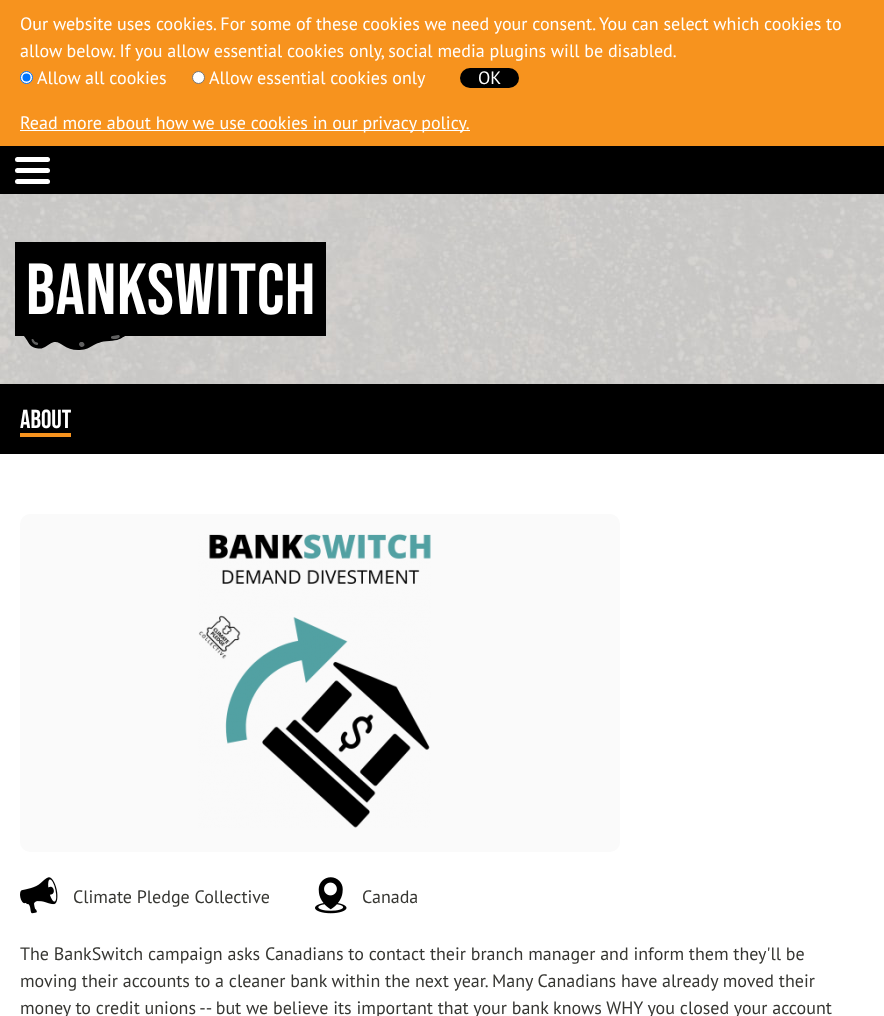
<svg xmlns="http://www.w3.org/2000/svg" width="884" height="1016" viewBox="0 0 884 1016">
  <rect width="100%" height="100%" fill="#fff"/>
  <path d="M0 0h884v146H0z" fill="#f7931e"/>
  <circle cx="26.5" cy="77.5" r="6" fill="#fff" stroke="#0075ff"/>
  <circle cx="26.5" cy="77.5" r="4" fill="#0075ff"/>
  <circle cx="198.5" cy="77.5" r="6" fill="#fff" stroke="#767676"/>
  <rect x="460" y="68" width="59" height="20" rx="10" fill="#000"/>
  <path d="M20 130h450v1H20z" fill="#fff"/>
  <path d="M0 146h884v48H0z" fill="#000"/>
  <rect x="15" y="157" width="35" height="5" rx="2.5" fill="#fff"/>
  <rect x="15" y="168" width="35" height="5" rx="2.5" fill="#fff"/>
  <rect x="15" y="179" width="35" height="5" rx="2.5" fill="#fff"/>
  <image x="0" y="194" width="884" height="190" href="img/1.png"/>
  <path d="M15 242h311v94H15z" fill="#000"/>
  <image x="24" y="335" width="101" height="15" href="img/2.png"/>
  <path d="M0 384h884v70H0z" fill="#000"/>
  <path d="M20 433h51v4H20z" fill="#f7931e"/>
  <rect x="20" y="514" width="600" height="338" rx="10" fill="#fafafa"/>
  <image x="198" y="534" width="233" height="294" href="img/3.png"/>
  <image x="20" y="877" width="38" height="37" href="img/4.png"/>
  <image x="315" y="877" width="32" height="37" href="img/5.png"/>
  <g font-family="PT Sans" font-size="18" fill="#fff">
    <text x="20" y="30">Our website uses cookies. For some of these cookies we need your consent. You can select which cookies to</text>
    <text x="20" y="57">allow below. If you allow essential cookies only, social media plugins will be disabled.</text>
    <text x="37" y="84">Allow all cookies</text>
    <text x="209" y="84">Allow essential cookies only</text>
    <text x="478" y="84">OK</text>
    <text x="20" y="129">Read more about how we use cookies in our privacy policy.</text>
  </g>
  <text x="26" y="314" font-family="Bebas Neue" font-size="72" letter-spacing="0.75" fill="#fff">BankSwitch</text>
  <text x="20" y="428" font-family="Bebas Neue" font-size="26" fill="#fff">About</text>
  <g font-family="PT Sans" font-size="18" fill="#363632">
    <text x="73" y="903">Climate Pledge Collective</text>
    <text x="362" y="903">Canada</text>
    <text x="20" y="960">The BankSwitch campaign asks Canadians to contact their branch manager and inform them they'll be</text>
    <text x="20" y="987">moving their accounts to a cleaner bank within the next year. Many Canadians have already moved their</text>
    <text x="20" y="1014">money to credit unions -- but we believe its important that your bank knows WHY you closed your account</text>
  </g>
</svg>
